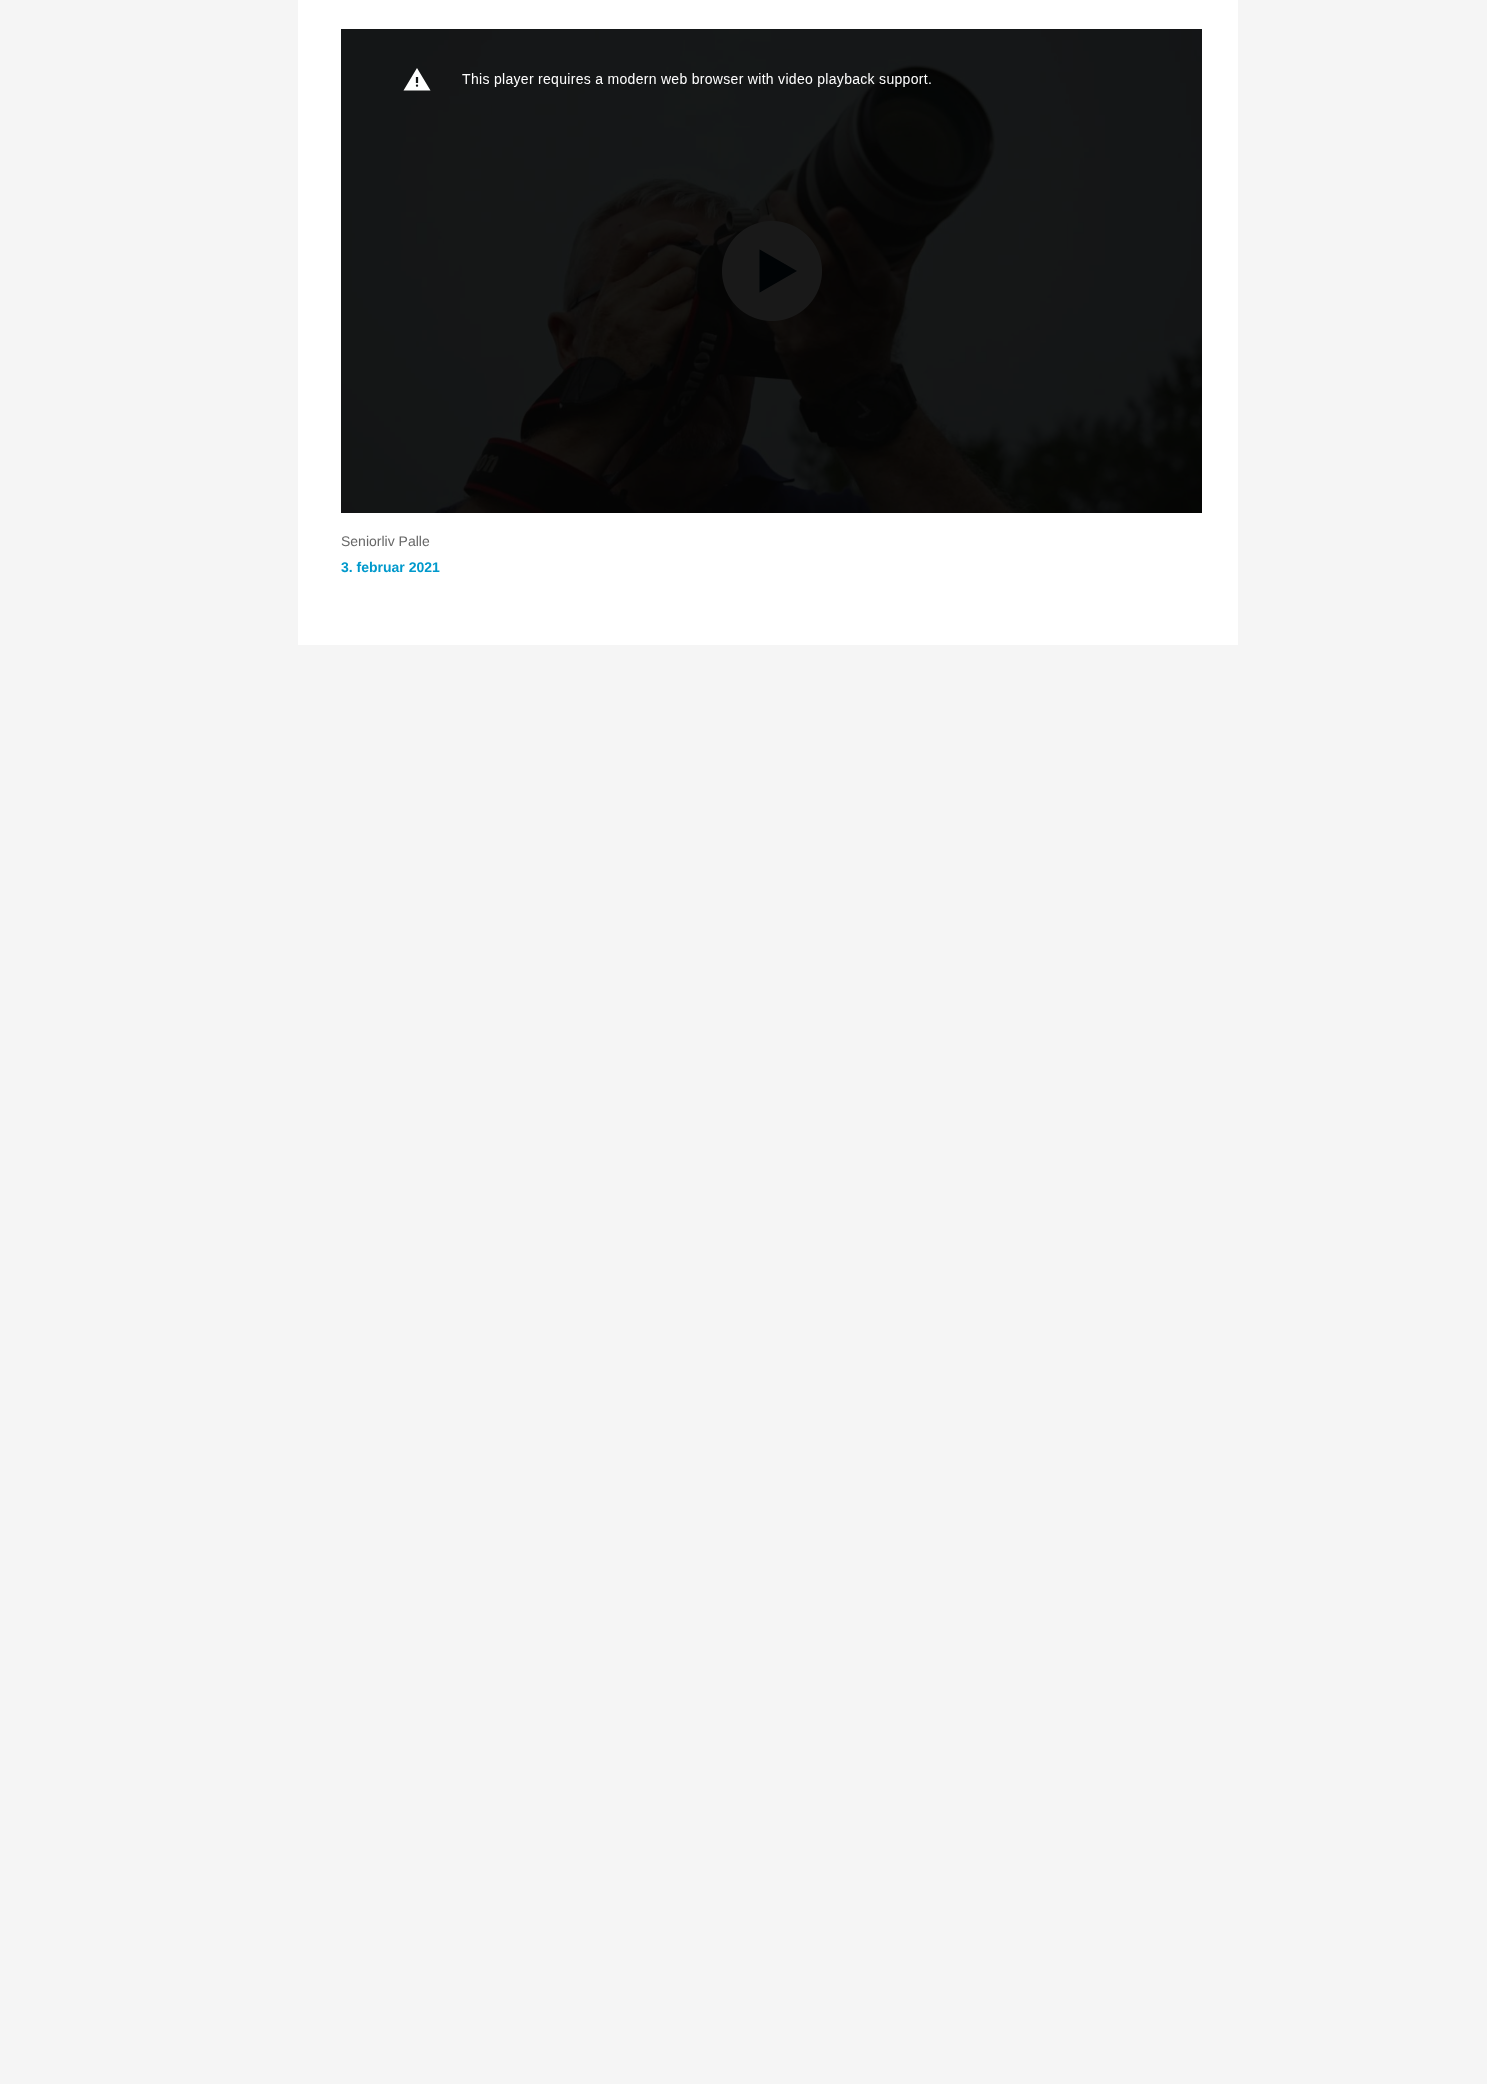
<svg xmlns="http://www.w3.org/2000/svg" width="1487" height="2084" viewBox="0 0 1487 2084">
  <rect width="100%" height="100%" fill="#f5f5f5"/>
  <path d="M298 0h940v645H298z" fill="#fff"/>
  <image x="341" y="29" width="861" height="484" href="img/1.png"/>
  <text x="341" y="546" font-family="Liberation Sans" font-size="14" fill="#666">Seniorliv Palle</text>
  <text x="341" y="572" font-family="Liberation Sans" font-size="14" font-weight="bold" fill="#09c">3. februar 2021</text>
</svg>
